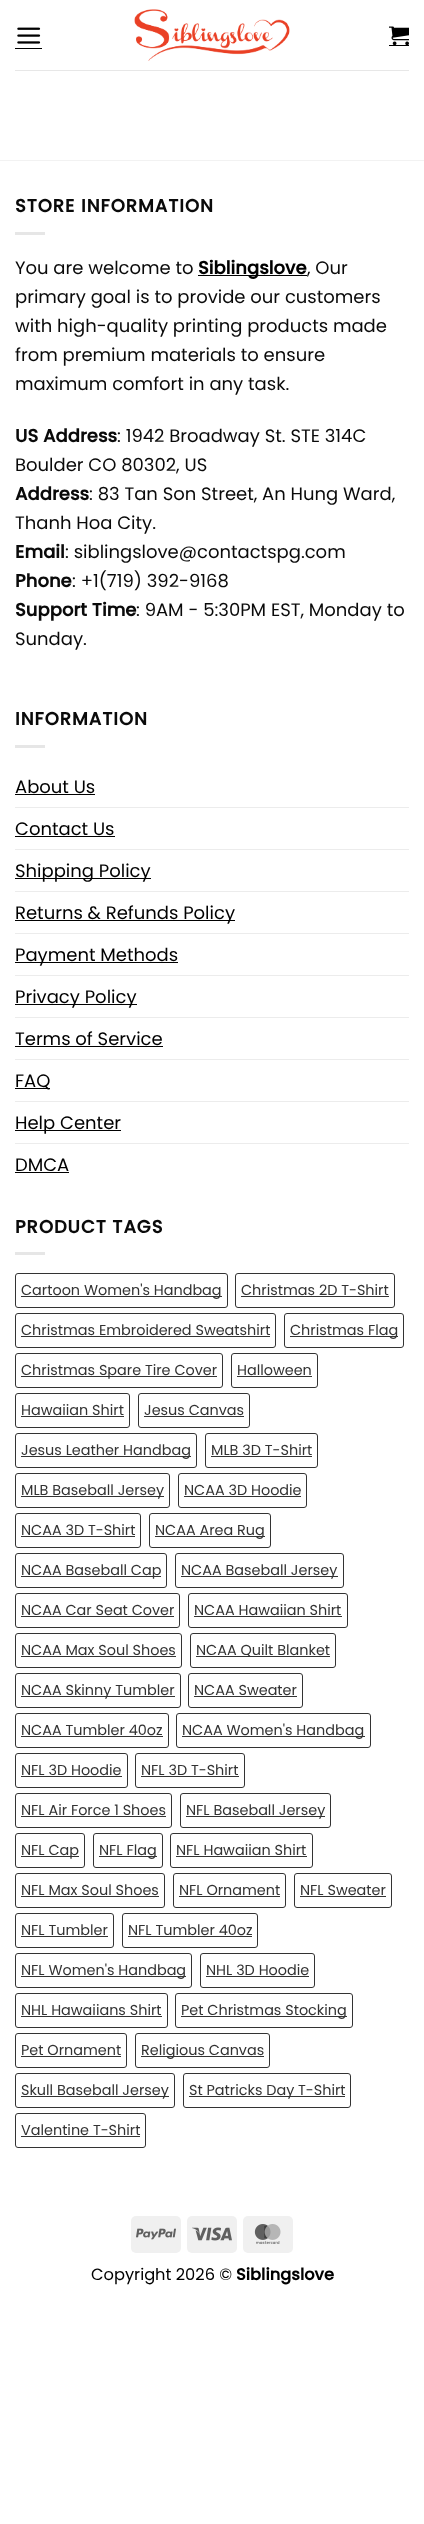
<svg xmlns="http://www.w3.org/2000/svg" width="424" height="2524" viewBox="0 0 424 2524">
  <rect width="100%" height="100%" fill="#fff"/>
  <image x="17" y="27" width="24" height="17" href="img/1.png"/>
  <path d="M15 48h27v1H15z" fill="#000"/>
  <image x="134" y="9" width="156" height="52" href="img/2.png"/>
  <image x="389" y="26" width="20" height="19" href="img/3.png"/>
  <path d="M389 45h20v1H389z" fill="#000"/>
  <path d="M15 70h394v1H15z" fill="#e7e7e7"/>
  <path d="M0 160h424v1H0z" fill="#f2f2f2"/>
  <path d="M15 232h30v3H15z" fill="#e6e6e6"/>
  <path d="M198 275h109v1H198z" fill="#000"/>
  <path d="M15 745h30v3H15z" fill="#e6e6e6"/>
  <path d="M15 794h80v1H15z" fill="#000"/>
  <path d="M15 807h394v1H15z" fill="#ececec"/>
  <path d="M15 836h100v1H15z" fill="#000"/>
  <path d="M15 849h394v1H15z" fill="#ececec"/>
  <path d="M15 878h136v1H15z" fill="#000"/>
  <path d="M15 891h394v1H15z" fill="#ececec"/>
  <path d="M15 920h220v1H15z" fill="#000"/>
  <path d="M15 933h394v1H15z" fill="#ececec"/>
  <path d="M15 962h163v1H15z" fill="#000"/>
  <path d="M15 975h394v1H15z" fill="#ececec"/>
  <path d="M15 1004h122v1H15z" fill="#000"/>
  <path d="M15 1017h394v1H15z" fill="#ececec"/>
  <path d="M15 1046h148v1H15z" fill="#000"/>
  <path d="M15 1059h394v1H15z" fill="#ececec"/>
  <path d="M15 1088h35v1H15z" fill="#000"/>
  <path d="M15 1101h394v1H15z" fill="#ececec"/>
  <path d="M15 1130h106v1H15z" fill="#000"/>
  <path d="M15 1143h394v1H15z" fill="#ececec"/>
  <path d="M15 1172h54v1H15z" fill="#000"/>
  <path d="M15 1252h30v3H15z" fill="#e6e6e6"/>
  <rect x="15.5" y="1273.5" width="212" height="34" rx="2.5" fill="none" stroke="#333"/>
  <path d="M21 1296h201v1H21z" fill="#333"/>
  <rect x="235.5" y="1273.5" width="159" height="34" rx="2.5" fill="none" stroke="#333"/>
  <path d="M241 1296h148v1H241z" fill="#333"/>
  <rect x="15.5" y="1313.5" width="260" height="34" rx="2.5" fill="none" stroke="#333"/>
  <path d="M21 1336h249v1H21z" fill="#333"/>
  <rect x="284.5" y="1313.5" width="119" height="34" rx="2.5" fill="none" stroke="#333"/>
  <path d="M290 1336h108v1H290z" fill="#333"/>
  <rect x="15.5" y="1353.5" width="207" height="34" rx="2.5" fill="none" stroke="#333"/>
  <path d="M21 1376h196v1H21z" fill="#333"/>
  <rect x="231.5" y="1353.5" width="86" height="34" rx="2.5" fill="none" stroke="#333"/>
  <path d="M237 1376h75v1H237z" fill="#333"/>
  <rect x="15.5" y="1393.5" width="114" height="34" rx="2.5" fill="none" stroke="#333"/>
  <path d="M21 1416h103v1H21z" fill="#333"/>
  <rect x="138.5" y="1393.5" width="111" height="34" rx="2.5" fill="none" stroke="#333"/>
  <path d="M144 1416h100v1H144z" fill="#333"/>
  <rect x="15.5" y="1433.5" width="181" height="34" rx="2.5" fill="none" stroke="#333"/>
  <path d="M21 1456h170v1H21z" fill="#333"/>
  <rect x="205.5" y="1433.5" width="112" height="34" rx="2.5" fill="none" stroke="#333"/>
  <path d="M211 1456h101v1H211z" fill="#333"/>
  <rect x="15.5" y="1473.5" width="154" height="34" rx="2.5" fill="none" stroke="#333"/>
  <path d="M21 1496h143v1H21z" fill="#333"/>
  <rect x="178.5" y="1473.5" width="128" height="34" rx="2.5" fill="none" stroke="#333"/>
  <path d="M184 1496h117v1H184z" fill="#333"/>
  <rect x="15.5" y="1513.5" width="125" height="34" rx="2.5" fill="none" stroke="#333"/>
  <path d="M21 1536h114v1H21z" fill="#333"/>
  <rect x="149.5" y="1513.5" width="121" height="34" rx="2.5" fill="none" stroke="#333"/>
  <path d="M155 1536h110v1H155z" fill="#333"/>
  <rect x="15.5" y="1553.5" width="151" height="34" rx="2.5" fill="none" stroke="#333"/>
  <path d="M21 1576h140v1H21z" fill="#333"/>
  <rect x="175.5" y="1553.5" width="168" height="34" rx="2.5" fill="none" stroke="#333"/>
  <path d="M181 1576h157v1H181z" fill="#333"/>
  <rect x="15.5" y="1593.5" width="164" height="34" rx="2.5" fill="none" stroke="#333"/>
  <path d="M21 1616h153v1H21z" fill="#333"/>
  <rect x="188.5" y="1593.5" width="159" height="34" rx="2.5" fill="none" stroke="#333"/>
  <path d="M194 1616h148v1H194z" fill="#333"/>
  <rect x="15.5" y="1633.5" width="166" height="34" rx="2.5" fill="none" stroke="#333"/>
  <path d="M21 1656h155v1H21z" fill="#333"/>
  <rect x="190.5" y="1633.5" width="145" height="34" rx="2.5" fill="none" stroke="#333"/>
  <path d="M196 1656h134v1H196z" fill="#333"/>
  <rect x="15.5" y="1673.5" width="165" height="34" rx="2.5" fill="none" stroke="#333"/>
  <path d="M21 1696h154v1H21z" fill="#333"/>
  <rect x="188.5" y="1673.5" width="114" height="34" rx="2.5" fill="none" stroke="#333"/>
  <path d="M194 1696h103v1H194z" fill="#333"/>
  <rect x="15.5" y="1713.5" width="153" height="34" rx="2.5" fill="none" stroke="#333"/>
  <path d="M21 1736h142v1H21z" fill="#333"/>
  <rect x="176.5" y="1713.5" width="194" height="34" rx="2.5" fill="none" stroke="#333"/>
  <path d="M182 1736h183v1H182z" fill="#333"/>
  <rect x="15.5" y="1753.5" width="112" height="34" rx="2.5" fill="none" stroke="#333"/>
  <path d="M21 1776h101v1H21z" fill="#333"/>
  <rect x="135.5" y="1753.5" width="109" height="34" rx="2.5" fill="none" stroke="#333"/>
  <path d="M141 1776h98v1H141z" fill="#333"/>
  <rect x="15.5" y="1793.5" width="156" height="34" rx="2.5" fill="none" stroke="#333"/>
  <path d="M21 1816h145v1H21z" fill="#333"/>
  <rect x="180.5" y="1793.5" width="150" height="34" rx="2.5" fill="none" stroke="#333"/>
  <path d="M186 1816h139v1H186z" fill="#333"/>
  <rect x="15.5" y="1833.5" width="69" height="34" rx="2.5" fill="none" stroke="#333"/>
  <path d="M21 1856h58v1H21z" fill="#333"/>
  <rect x="93.5" y="1833.5" width="69" height="34" rx="2.5" fill="none" stroke="#333"/>
  <path d="M99 1856h58v1H99z" fill="#333"/>
  <rect x="170.5" y="1833.5" width="142" height="34" rx="2.5" fill="none" stroke="#333"/>
  <path d="M176 1856h131v1H176z" fill="#333"/>
  <rect x="15.5" y="1873.5" width="149" height="34" rx="2.5" fill="none" stroke="#333"/>
  <path d="M21 1896h138v1H21z" fill="#333"/>
  <rect x="173.5" y="1873.5" width="112" height="34" rx="2.5" fill="none" stroke="#333"/>
  <path d="M179 1896h101v1H179z" fill="#333"/>
  <rect x="294.5" y="1873.5" width="97" height="34" rx="2.5" fill="none" stroke="#333"/>
  <path d="M300 1896h86v1H300z" fill="#333"/>
  <rect x="15.5" y="1913.5" width="98" height="34" rx="2.5" fill="none" stroke="#333"/>
  <path d="M21 1936h87v1H21z" fill="#333"/>
  <rect x="122.5" y="1913.5" width="135" height="34" rx="2.5" fill="none" stroke="#333"/>
  <path d="M128 1936h124v1H128z" fill="#333"/>
  <rect x="15.5" y="1953.5" width="176" height="34" rx="2.5" fill="none" stroke="#333"/>
  <path d="M21 1976h165v1H21z" fill="#333"/>
  <rect x="200.5" y="1953.5" width="114" height="34" rx="2.5" fill="none" stroke="#333"/>
  <path d="M206 1976h103v1H206z" fill="#333"/>
  <rect x="15.5" y="1993.5" width="152" height="34" rx="2.5" fill="none" stroke="#333"/>
  <path d="M21 2016h141v1H21z" fill="#333"/>
  <rect x="175.5" y="1993.5" width="177" height="34" rx="2.5" fill="none" stroke="#333"/>
  <path d="M181 2016h166v1H181z" fill="#333"/>
  <rect x="15.5" y="2033.5" width="111" height="34" rx="2.5" fill="none" stroke="#333"/>
  <path d="M21 2056h100v1H21z" fill="#333"/>
  <rect x="135.5" y="2033.5" width="134" height="34" rx="2.5" fill="none" stroke="#333"/>
  <path d="M141 2056h123v1H141z" fill="#333"/>
  <rect x="15.5" y="2073.5" width="159" height="34" rx="2.5" fill="none" stroke="#333"/>
  <path d="M21 2096h148v1H21z" fill="#333"/>
  <rect x="183.5" y="2073.5" width="167" height="34" rx="2.5" fill="none" stroke="#333"/>
  <path d="M189 2096h156v1H189z" fill="#333"/>
  <rect x="15.5" y="2113.5" width="130" height="34" rx="2.5" fill="none" stroke="#333"/>
  <path d="M21 2136h119v1H21z" fill="#333"/>
  <rect x="131" y="2216" width="50" height="37" rx="5" fill="#f0f0f0"/>
  <image x="136" y="2228" width="40" height="12" href="img/4.png"/>
  <rect x="187" y="2216" width="50" height="37" rx="5" fill="#f0f0f0"/>
  <image x="192" y="2227" width="40" height="14" href="img/5.png"/>
  <rect x="243" y="2216" width="50" height="37" rx="5" fill="#f0f0f0"/>
  <image x="254" y="2224" width="27" height="20" href="img/6.png"/>
  <text x="15" y="212" font-family="Poppins" font-size="18" font-weight="bold" letter-spacing="0.9" fill="#0a0a0a">STORE INFORMATION</text>
  <text x="15" y="274" font-family="Poppins" font-size="18" fill="#0a0a0a">You are welcome to</text>
  <text x="198" y="274" font-family="Poppins" font-size="18" font-weight="bold" fill="#000">Siblingslove</text>
  <g font-family="Poppins" font-size="18" fill="#0a0a0a">
    <text x="307" y="274">, Our</text>
    <text x="15" y="303">primary goal is to provide our customers</text>
    <text x="15" y="332">with high-quality printing products made</text>
    <text x="15" y="361">from premium materials to ensure</text>
    <text x="15" y="390">maximum comfort in any task.</text>
  </g>
  <text x="15" y="442" font-family="Poppins" font-size="18" font-weight="bold" fill="#0a0a0a">US Address</text>
  <g font-family="Poppins" font-size="18" fill="#0a0a0a">
    <text x="117" y="442">: 1942 Broadway St. STE 314C</text>
    <text x="15" y="471">Boulder CO 80302, US</text>
  </g>
  <text x="15" y="500" font-family="Poppins" font-size="18" font-weight="bold" fill="#0a0a0a">Address</text>
  <g font-family="Poppins" font-size="18" fill="#0a0a0a">
    <text x="89" y="500">: 83 Tan Son Street, An Hung Ward,</text>
    <text x="15" y="529">Thanh Hoa City.</text>
  </g>
  <text x="15" y="558" font-family="Poppins" font-size="18" font-weight="bold" fill="#0a0a0a">Email</text>
  <text x="65" y="558" font-family="Poppins" font-size="18" fill="#0a0a0a">: siblingslove@contactspg.com</text>
  <text x="15" y="587" font-family="Poppins" font-size="18" font-weight="bold" fill="#0a0a0a">Phone</text>
  <text x="72" y="587" font-family="Poppins" font-size="18" fill="#0a0a0a">: +1(719) 392-9168</text>
  <text x="15" y="616" font-family="Poppins" font-size="18" font-weight="bold" fill="#0a0a0a">Support Time</text>
  <g font-family="Poppins" font-size="18" fill="#0a0a0a">
    <text x="136" y="616">: 9AM - 5:30PM EST, Monday to</text>
    <text x="15" y="645">Sunday.</text>
  </g>
  <text x="15" y="725" font-family="Poppins" font-size="18" font-weight="bold" letter-spacing="0.9" fill="#0a0a0a">INFORMATION</text>
  <g font-family="Poppins" font-size="18" fill="#000">
    <text x="15" y="793">About Us</text>
    <text x="15" y="835">Contact Us</text>
    <text x="15" y="877">Shipping Policy</text>
    <text x="15" y="919">Returns &amp; Refunds Policy</text>
    <text x="15" y="961">Payment Methods</text>
    <text x="15" y="1003">Privacy Policy</text>
    <text x="15" y="1045">Terms of Service</text>
    <text x="15" y="1087">FAQ</text>
    <text x="15" y="1129">Help Center</text>
    <text x="15" y="1171">DMCA</text>
  </g>
  <text x="15" y="1233" font-family="Poppins" font-size="18" font-weight="bold" letter-spacing="0.9" fill="#0a0a0a">PRODUCT TAGS</text>
  <g font-family="Poppins" font-size="14.4" fill="#333">
    <text x="21" y="1295">Cartoon Women's Handbag</text>
    <text x="241" y="1295">Christmas 2D T-Shirt</text>
    <text x="21" y="1335">Christmas Embroidered Sweatshirt</text>
    <text x="290" y="1335">Christmas Flag</text>
    <text x="21" y="1375">Christmas Spare Tire Cover</text>
    <text x="237" y="1375">Halloween</text>
    <text x="21" y="1415">Hawaiian Shirt</text>
    <text x="144" y="1415">Jesus Canvas</text>
    <text x="21" y="1455">Jesus Leather Handbag</text>
    <text x="211" y="1455">MLB 3D T-Shirt</text>
    <text x="21" y="1495">MLB Baseball Jersey</text>
    <text x="184" y="1495">NCAA 3D Hoodie</text>
    <text x="21" y="1535">NCAA 3D T-Shirt</text>
    <text x="155" y="1535">NCAA Area Rug</text>
    <text x="21" y="1575">NCAA Baseball Cap</text>
    <text x="181" y="1575">NCAA Baseball Jersey</text>
    <text x="21" y="1615">NCAA Car Seat Cover</text>
    <text x="194" y="1615">NCAA Hawaiian Shirt</text>
    <text x="21" y="1655">NCAA Max Soul Shoes</text>
    <text x="196" y="1655">NCAA Quilt Blanket</text>
    <text x="21" y="1695">NCAA Skinny Tumbler</text>
    <text x="194" y="1695">NCAA Sweater</text>
    <text x="21" y="1735">NCAA Tumbler 40oz</text>
    <text x="182" y="1735">NCAA Women's Handbag</text>
    <text x="21" y="1775">NFL 3D Hoodie</text>
    <text x="141" y="1775">NFL 3D T-Shirt</text>
    <text x="21" y="1815">NFL Air Force 1 Shoes</text>
    <text x="186" y="1815">NFL Baseball Jersey</text>
    <text x="21" y="1855">NFL Cap</text>
    <text x="99" y="1855">NFL Flag</text>
    <text x="176" y="1855">NFL Hawaiian Shirt</text>
    <text x="21" y="1895">NFL Max Soul Shoes</text>
    <text x="179" y="1895">NFL Ornament</text>
    <text x="300" y="1895">NFL Sweater</text>
    <text x="21" y="1935">NFL Tumbler</text>
    <text x="128" y="1935">NFL Tumbler 40oz</text>
    <text x="21" y="1975">NFL Women's Handbag</text>
    <text x="206" y="1975">NHL 3D Hoodie</text>
    <text x="21" y="2015">NHL Hawaiians Shirt</text>
    <text x="181" y="2015">Pet Christmas Stocking</text>
    <text x="21" y="2055">Pet Ornament</text>
    <text x="141" y="2055">Religious Canvas</text>
    <text x="21" y="2095">Skull Baseball Jersey</text>
    <text x="189" y="2095">St Patricks Day T-Shirt</text>
    <text x="21" y="2135">Valentine T-Shirt</text>
  </g>
  <text x="91" y="2280" font-family="Poppins" font-size="16.25" fill="#000">Copyright 2026 ©</text>
  <text x="236" y="2280" font-family="Poppins" font-size="16.25" font-weight="bold" fill="#000">Siblingslove</text>
</svg>
